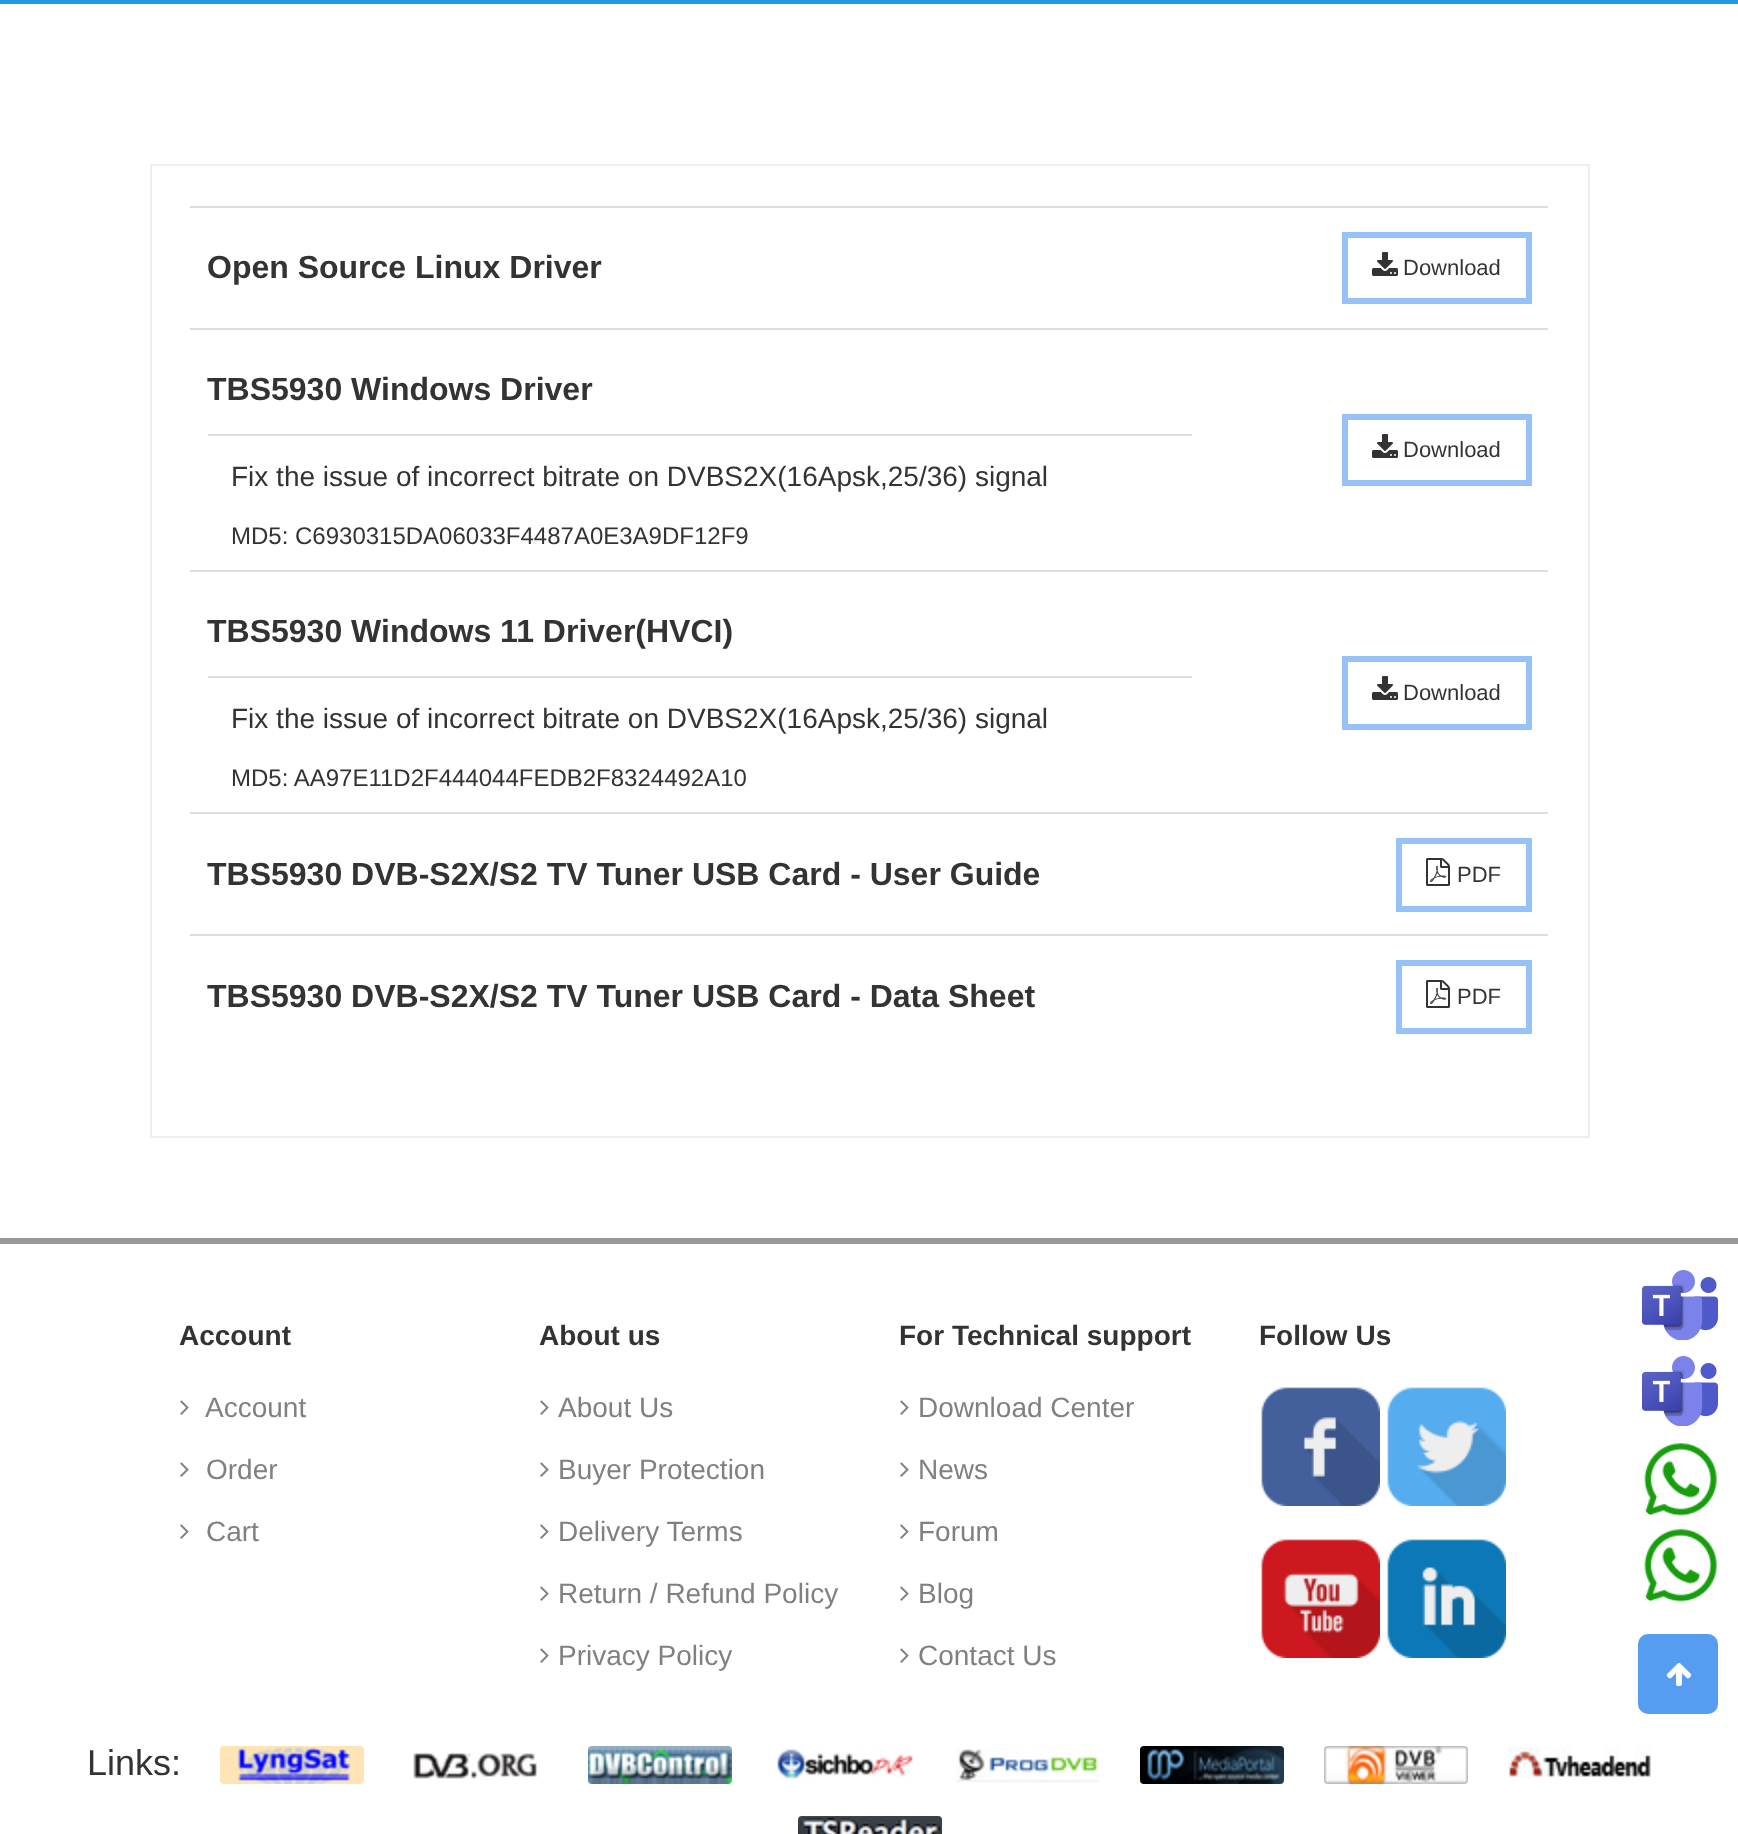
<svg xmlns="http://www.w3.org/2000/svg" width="1738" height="1834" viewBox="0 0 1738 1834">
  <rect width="100%" height="100%" fill="#fff"/>
  <path d="M0 0h1738v4H0z" fill="#29d"/>
  <path d="M151 165h1438v972H151z" fill="none" stroke="#eee" stroke-width="2"/>
  <path d="M190 206h1358v2H190z" fill="#ddd"/>
  <path d="M1345 235h184v66H1345z" fill="none" stroke="#96c2f7" stroke-width="6"/>
  <image x="1372" y="252" width="26" height="24" href="img/1.png"/>
  <path d="M190 328h1358v2H190z" fill="#ddd"/>
  <path d="M208 434h984v2H208z" fill="#ddd"/>
  <path d="M1345 417h184v66H1345z" fill="none" stroke="#96c2f7" stroke-width="6"/>
  <image x="1372" y="434" width="26" height="24" href="img/1.png"/>
  <path d="M190 570h1358v2H190z" fill="#ddd"/>
  <path d="M208 676h984v2H208z" fill="#ddd"/>
  <path d="M1345 659h184v68H1345z" fill="none" stroke="#96c2f7" stroke-width="6"/>
  <image x="1372" y="676" width="26" height="24" href="img/1.png"/>
  <path d="M190 812h1358v2H190z" fill="#ddd"/>
  <path d="M1399 841h130v68H1399z" fill="none" stroke="#96c2f7" stroke-width="6"/>
  <image x="1426" y="858" width="24" height="28" href="img/2.png"/>
  <path d="M190 934h1358v2H190z" fill="#ddd"/>
  <path d="M1399 963h130v68H1399z" fill="none" stroke="#96c2f7" stroke-width="6"/>
  <image x="1426" y="980" width="24" height="28" href="img/2.png"/>
  <path d="M0 1238h1738v6H0z" fill="#999"/>
  <image x="180" y="1400" width="9" height="15" href="img/3.png"/>
  <image x="180" y="1462" width="9" height="15" href="img/3.png"/>
  <image x="180" y="1524" width="9" height="15" href="img/3.png"/>
  <image x="540" y="1400" width="9" height="15" href="img/3.png"/>
  <image x="540" y="1462" width="9" height="15" href="img/3.png"/>
  <image x="540" y="1524" width="9" height="15" href="img/3.png"/>
  <image x="540" y="1586" width="9" height="15" href="img/3.png"/>
  <image x="540" y="1648" width="9" height="15" href="img/3.png"/>
  <image x="900" y="1400" width="9" height="15" href="img/3.png"/>
  <image x="900" y="1462" width="9" height="15" href="img/3.png"/>
  <image x="900" y="1524" width="9" height="15" href="img/3.png"/>
  <image x="900" y="1586" width="9" height="15" href="img/3.png"/>
  <image x="900" y="1648" width="9" height="15" href="img/3.png"/>
  <image x="1261" y="1387" width="119" height="119" href="img/4.png"/>
  <image x="1387" y="1387" width="119" height="119" href="img/5.png"/>
  <image x="1261" y="1539" width="119" height="119" href="img/6.png"/>
  <image x="1387" y="1539" width="119" height="119" href="img/7.png"/>
  <image x="220" y="1746" width="144" height="38" href="img/8.png"/>
  <image x="413" y="1752" width="125" height="27" href="img/9.png"/>
  <image x="588" y="1746" width="144" height="38" href="img/10.png"/>
  <image x="777" y="1749" width="136" height="30" href="img/11.png"/>
  <image x="956" y="1749" width="143" height="34" href="img/12.png"/>
  <image x="1140" y="1746" width="144" height="38" href="img/13.png"/>
  <image x="1324" y="1746" width="144" height="38" href="img/14.png"/>
  <image x="1508" y="1746" width="143" height="32" href="img/15.png"/>
  <image x="798" y="1816" width="144" height="18" href="img/16.png"/>
  <image x="1642" y="1270" width="76" height="70" href="img/17.png"/>
  <image x="1642" y="1356" width="76" height="70" href="img/17.png"/>
  <image x="1644" y="1443" width="73" height="73" href="img/18.png"/>
  <image x="1644" y="1529" width="73" height="73" href="img/18.png"/>
  <rect x="1638" y="1634" width="80" height="80" rx="10" fill="#569df1"/>
  <image x="1666" y="1663" width="26" height="23" href="img/19.png"/>
  <text x="207" y="278" font-family="Liberation Sans" font-size="32" font-weight="bold" fill="#333">Open Source Linux Driver</text>
  <text x="1403" y="275" font-family="Liberation Sans" font-size="22" fill="#333">Download</text>
  <text x="207" y="400" font-family="Liberation Sans" font-size="32" font-weight="bold" fill="#333">TBS5930 Windows Driver</text>
  <text x="231" y="486" font-family="Liberation Sans" font-size="28" fill="#333">Fix the issue of incorrect bitrate on DVBS2X(16Apsk,25/36) signal</text>
  <text x="231" y="544" font-family="Liberation Sans" font-size="24" fill="#333">MD5: C6930315DA06033F4487A0E3A9DF12F9</text>
  <text x="1403" y="457" font-family="Liberation Sans" font-size="22" fill="#333">Download</text>
  <text x="207" y="642" font-family="Liberation Sans" font-size="32" font-weight="bold" fill="#333">TBS5930 Windows 11 Driver(HVCI)</text>
  <text x="231" y="728" font-family="Liberation Sans" font-size="28" fill="#333">Fix the issue of incorrect bitrate on DVBS2X(16Apsk,25/36) signal</text>
  <text x="231" y="786" font-family="Liberation Sans" font-size="24" fill="#333">MD5: AA97E11D2F444044FEDB2F8324492A10</text>
  <text x="1403" y="700" font-family="Liberation Sans" font-size="22" fill="#333">Download</text>
  <text x="207" y="885" font-family="Liberation Sans" font-size="32" font-weight="bold" fill="#333">TBS5930 DVB-S2X/S2 TV Tuner USB Card - User Guide</text>
  <text x="1457" y="882" font-family="Liberation Sans" font-size="22" fill="#333">PDF</text>
  <text x="207" y="1007" font-family="Liberation Sans" font-size="32" font-weight="bold" fill="#333">TBS5930 DVB-S2X/S2 TV Tuner USB Card - Data Sheet</text>
  <text x="1457" y="1004" font-family="Liberation Sans" font-size="22" fill="#333">PDF</text>
  <text x="179" y="1345" font-family="Liberation Sans" font-size="28" font-weight="bold" fill="#333">Account</text>
  <g font-family="Liberation Sans" font-size="28" fill="#808080">
    <text x="205" y="1417">Account</text>
    <text x="206" y="1479">Order</text>
    <text x="206" y="1541">Cart</text>
  </g>
  <text x="539" y="1345" font-family="Liberation Sans" font-size="28" font-weight="bold" fill="#333">About us</text>
  <g font-family="Liberation Sans" font-size="28" fill="#808080">
    <text x="558" y="1417">About Us</text>
    <text x="558" y="1479">Buyer Protection</text>
    <text x="558" y="1541">Delivery Terms</text>
    <text x="558" y="1603">Return / Refund Policy</text>
    <text x="558" y="1665">Privacy Policy</text>
  </g>
  <text x="899" y="1345" font-family="Liberation Sans" font-size="28" font-weight="bold" fill="#333">For Technical support</text>
  <g font-family="Liberation Sans" font-size="28" fill="#808080">
    <text x="918" y="1417">Download Center</text>
    <text x="918" y="1479">News</text>
    <text x="918" y="1541">Forum</text>
    <text x="918" y="1603">Blog</text>
    <text x="918" y="1665">Contact Us</text>
  </g>
  <text x="1259" y="1345" font-family="Liberation Sans" font-size="28" font-weight="bold" fill="#333">Follow Us</text>
  <text x="87" y="1775" font-family="Liberation Sans" font-size="36" fill="#333">Links:</text>
</svg>
